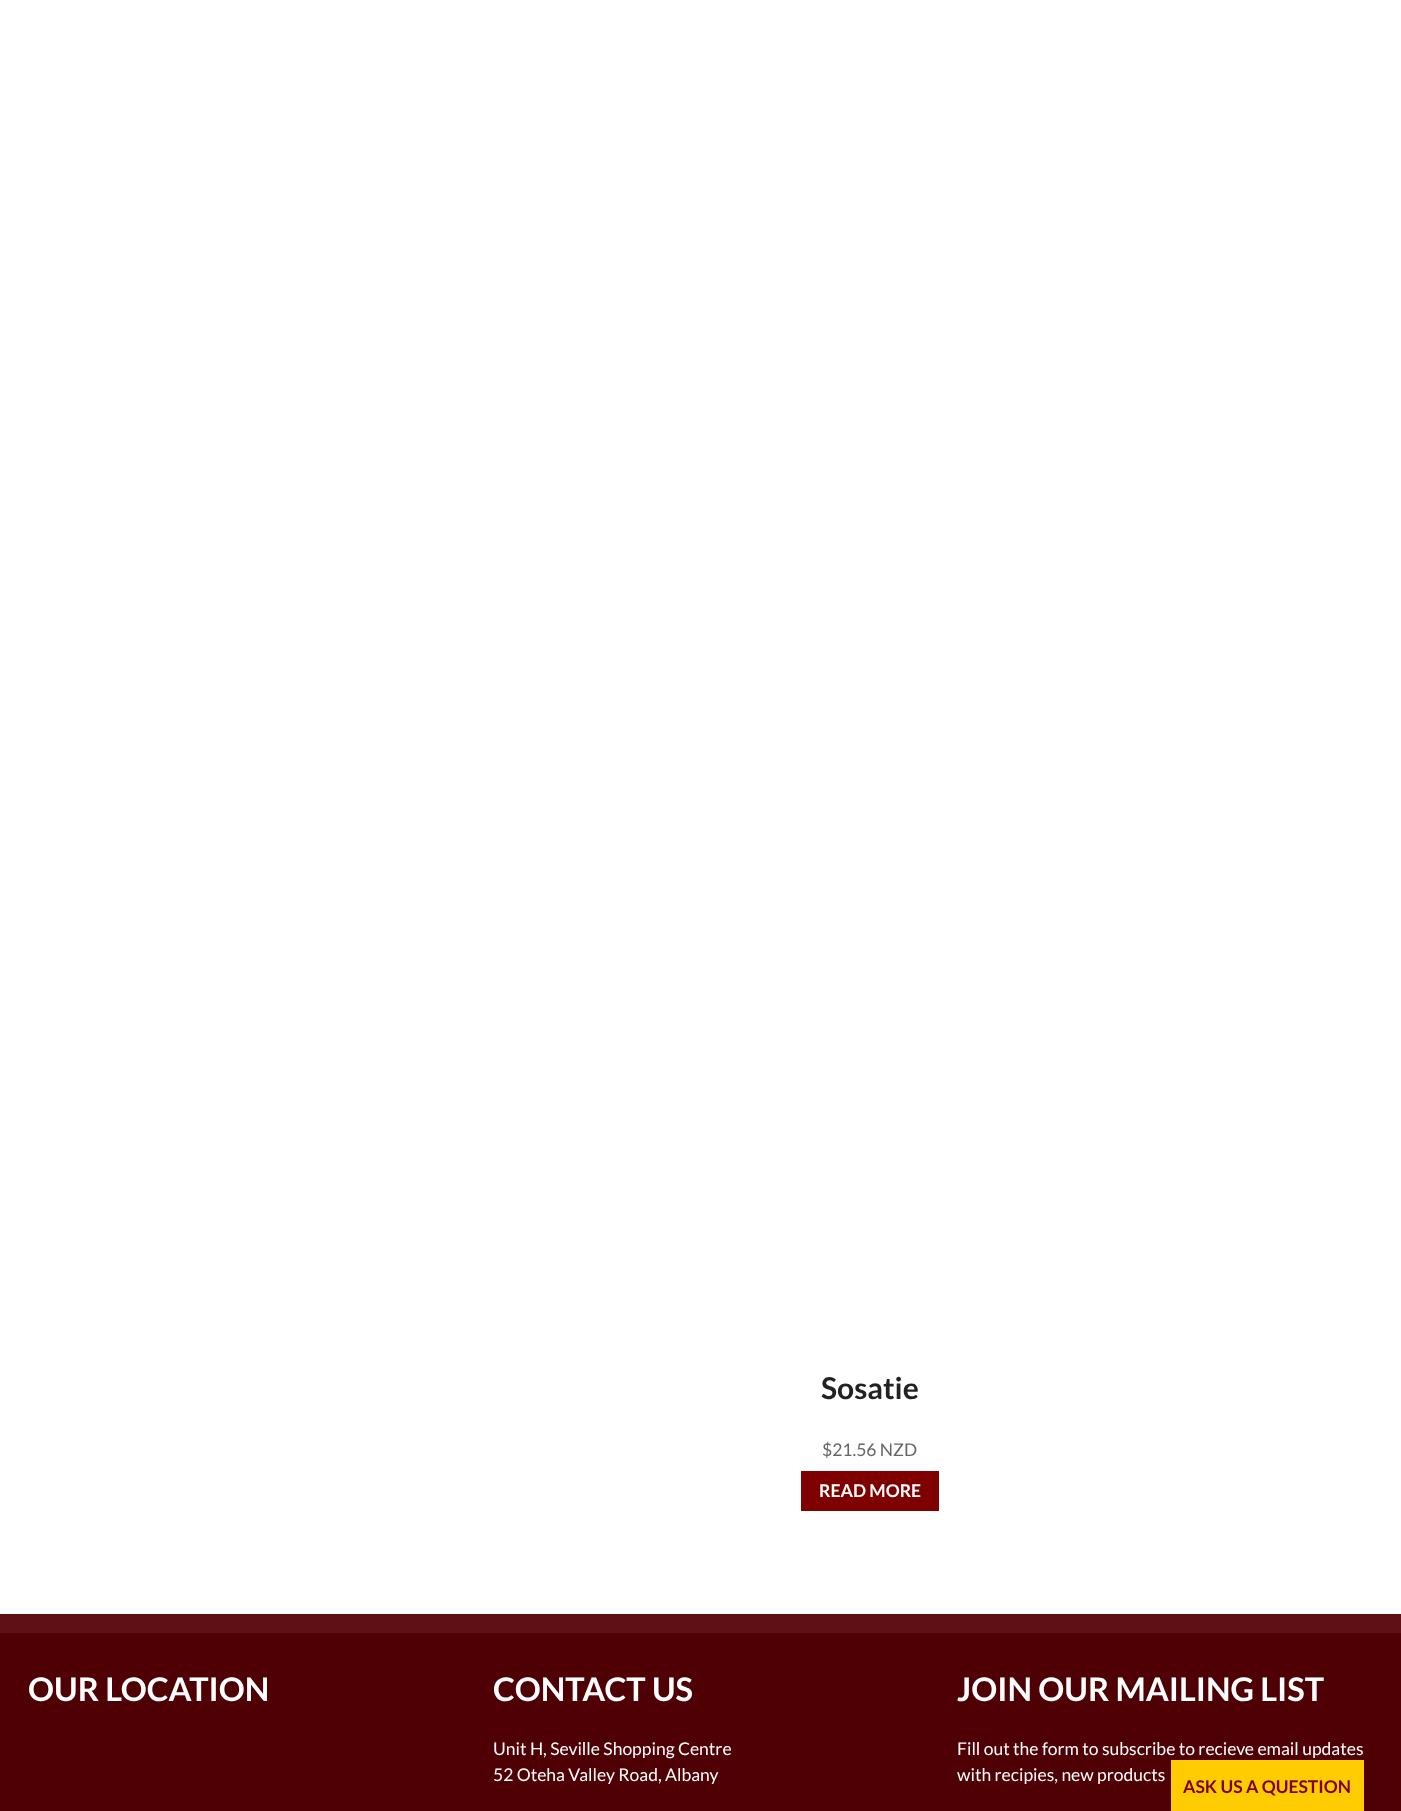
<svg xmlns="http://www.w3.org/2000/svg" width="1401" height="1811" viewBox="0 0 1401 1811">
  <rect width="100%" height="100%" fill="#fff"/>
  <path d="M801 1471h138v40H801z" fill="#7e0001"/>
  <path d="M0 1633h1401v178H0z" fill="#4f0004"/>
  <path d="M0 1614h1401v19H0z" fill="#5e1016"/>
  <path d="M1171 1760h193v51H1171z" fill="#ffcc02"/>
  <text x="821" y="1399" font-family="Lato" font-size="30" font-weight="bold" fill="#222">Sosatie</text>
  <text x="822" y="1456" font-family="Lato" font-size="17.5" fill="#666">$21.56 NZD</text>
  <text x="819" y="1497" font-family="Lato" font-size="17.5" font-weight="bold" fill="#fff">READ MORE</text>
  <g font-family="Lato" font-size="32.5" font-weight="bold" fill="#fff">
    <text x="28" y="1701">OUR LOCATION</text>
    <text x="493" y="1701">CONTACT US</text>
  </g>
  <g font-family="Lato" font-size="17.5" fill="#fff">
    <text x="493" y="1755">Unit H, Seville Shopping Centre</text>
    <text x="493" y="1781">52 Oteha Valley Road, Albany</text>
  </g>
  <text x="957" y="1701" font-family="Lato" font-size="32.5" font-weight="bold" fill="#fff">JOIN OUR MAILING LIST</text>
  <g font-family="Lato" font-size="17.5" fill="#fff">
    <text x="957" y="1755">Fill out the form to subscribe to recieve email updates</text>
    <text x="957" y="1781">with recipies, new products</text>
  </g>
  <text x="1183" y="1793" font-family="Lato" font-size="17.5" font-weight="bold" fill="#7e0001">ASK US A QUESTION</text>
</svg>
